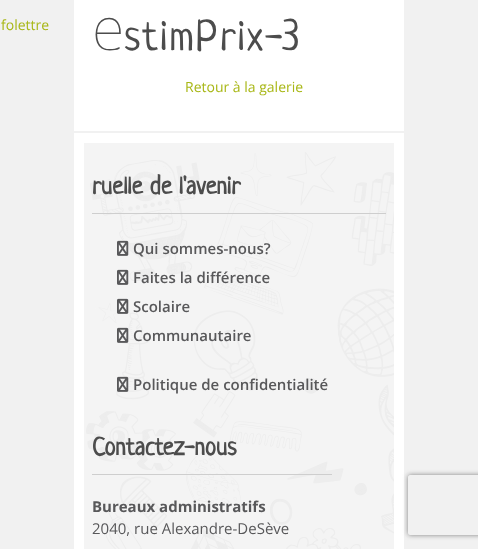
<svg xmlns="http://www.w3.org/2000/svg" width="478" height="549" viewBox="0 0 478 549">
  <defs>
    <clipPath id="clip1"><path d="M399 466H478V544H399ZM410 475H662C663 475 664 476 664 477V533C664 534 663 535 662 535H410C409 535 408 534 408 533V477C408 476 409 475 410 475Z" clip-rule="evenodd"/></clipPath>
  </defs>
  <rect width="100%" height="100%" fill="#f1f1f1"/>
  <path d="M74 0h330v549H74z" fill="#fff"/>
  <path d="M74 131h330v2H74z" fill="#f1f1f1"/>
  <image x="84" y="143" width="310" height="406" href="img/1.png"/>
  <path d="M92 213h294v1H92z" fill="#cecece"/>
  <image x="117" y="240" width="12" height="16" href="img/2.png"/>
  <image x="117" y="269" width="12" height="16" href="img/3.png"/>
  <image x="117" y="298" width="12" height="16" href="img/4.png"/>
  <image x="117" y="327" width="12" height="16" href="img/5.png"/>
  <image x="117" y="376" width="12" height="16" href="img/6.png"/>
  <path d="M92 474h240v1H92z" fill="#cecece"/>
  <g clip-path="url(#clip1)">
    <rect x="408" y="475" width="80" height="60" rx="2" fill="#808080" filter="blur(2.5px)"/>
  </g>
  <text x="1" y="30" font-family="Open Sans" font-size="14" fill="#a8b715">folettre</text>
  <text x="92" y="50" font-family="Noto Sans" font-size="60" font-weight="100" letter-spacing="5" fill="#4c4c4c">e</text>
  <text x="124" y="50" font-family="Neucha" font-size="43" letter-spacing="2" fill="#4c4c4c">stimPrix-3</text>
  <text x="185" y="92" font-family="Open Sans" font-size="14" fill="#a8b715">Retour à la galerie</text>
  <text x="92" y="194" font-family="Neucha" font-size="25" font-weight="bold" fill="#4c4c4c">ruelle de l'avenir</text>
  <g font-family="Open Sans" font-size="15" font-weight="600" fill="#58585a">
    <text x="133" y="254">Qui sommes-nous?</text>
    <text x="133" y="283">Faites la différence</text>
    <text x="133" y="312">Scolaire</text>
    <text x="133" y="341">Communautaire</text>
    <text x="133" y="390">Politique de confidentialité</text>
  </g>
  <text x="92" y="455" font-family="Neucha" font-size="25" font-weight="bold" fill="#4c4c4c">Contactez-nous</text>
  <text x="92" y="512" font-family="Open Sans" font-size="15" font-weight="bold" fill="#58585a">Bureaux administratifs</text>
  <text x="92" y="534" font-family="Open Sans" font-size="15" fill="#58585a">2040, rue Alexandre-DeSève</text>
</svg>
